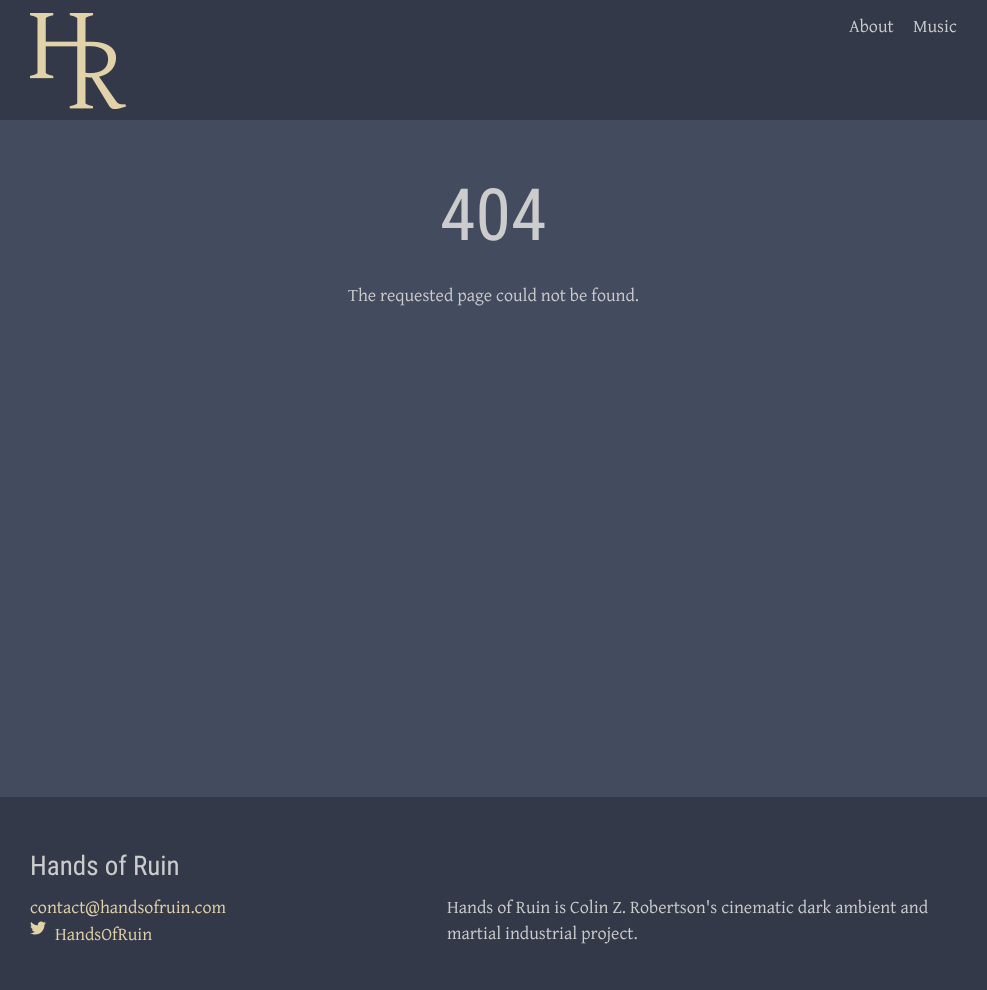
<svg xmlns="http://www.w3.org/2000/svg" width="987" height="990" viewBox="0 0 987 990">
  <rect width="100%" height="100%" fill="#434b5f"/>
  <path d="M0 0h987v120H0z" fill="#333948"/>
  <image x="30" y="13" width="96" height="96" href="img/1.png"/>
  <path d="M0 797h987v193H0z" fill="#333948"/>
  <image x="30" y="921" width="16" height="14" href="img/2.png"/>
  <g font-family="Gentium Plus" font-size="18" fill="#ccc">
    <text x="849" y="32">About</text>
    <text x="913" y="32">Music</text>
  </g>
  <text x="440" y="240" font-family="Roboto Condensed" font-size="72" fill="#ccc">404</text>
  <text x="348" y="301" font-family="Gentium Plus" font-size="18" fill="#ccc">The requested page could not be found.</text>
  <text x="30" y="875" font-family="Roboto Condensed" font-size="27" fill="#ccc">Hands of Ruin</text>
  <g font-family="Gentium Plus" font-size="18" fill="#e2d2a9">
    <text x="30" y="913">contact@handsofruin.com</text>
    <text x="55" y="940">HandsOfRuin</text>
  </g>
  <g font-family="Gentium Plus" font-size="18" fill="#ccc">
    <text x="447" y="913">Hands of Ruin is Colin Z. Robertson's cinematic dark ambient and</text>
    <text x="447" y="939">martial industrial project.</text>
  </g>
</svg>
